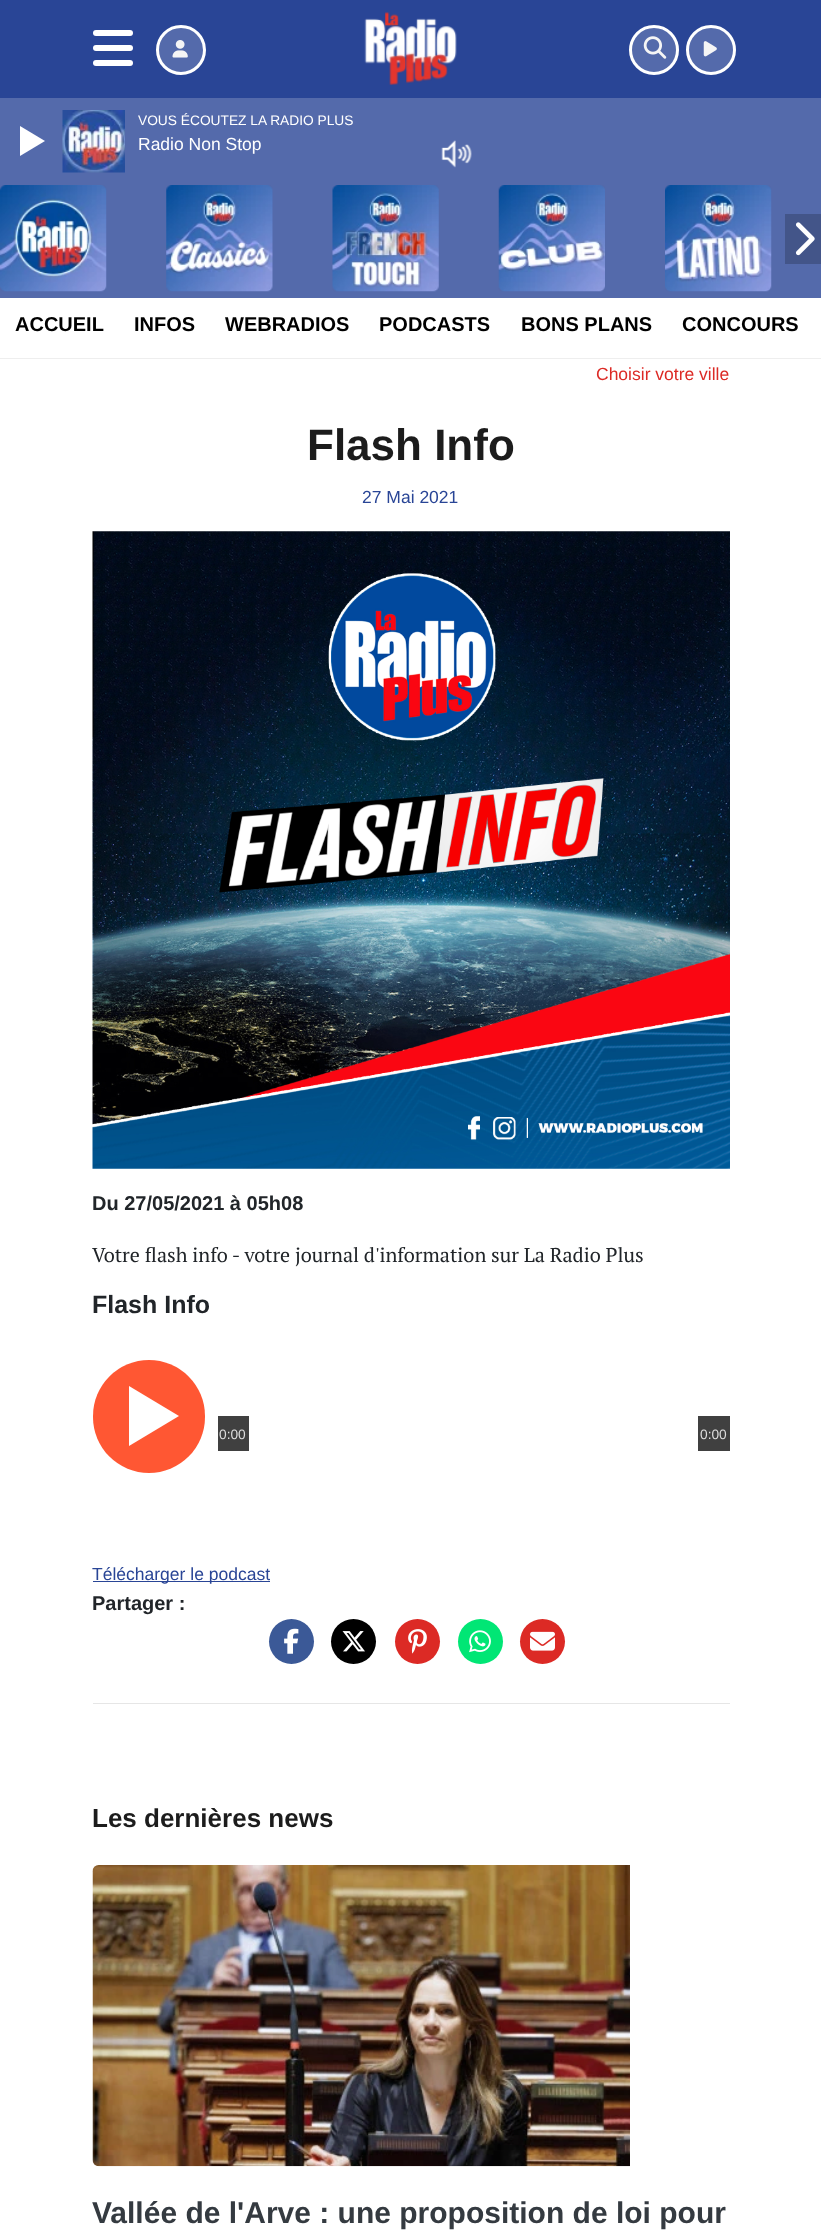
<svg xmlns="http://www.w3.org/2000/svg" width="821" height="2238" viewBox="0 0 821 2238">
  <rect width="100%" height="100%" fill="#fff"/>
  <path d="M0 98h821v200H0z" fill="#546aab"/>
  <image x="62" y="110" width="63" height="63" href="img/1.png"/>
  <path d="M20 156V126L45 141Z" fill="#fff"/>
  <image x="441" y="140" width="31" height="28" href="img/2.png"/>
  <image x="0" y="185" width="107" height="107" href="img/3.png"/>
  <image x="166" y="185" width="107" height="107" href="img/4.png"/>
  <image x="332" y="185" width="107" height="107" href="img/5.png"/>
  <image x="498" y="185" width="107" height="107" href="img/6.png"/>
  <image x="665" y="185" width="107" height="107" href="img/7.png"/>
  <path d="M785 214h36v50H785z" fill="#435589"/>
  <image x="795" y="222" width="20" height="34" href="img/8.png"/>
  <path d="M0 0h821v98H0z" fill="#294596"/>
  <rect x="93" y="30" width="40" height="6" rx="3" fill="#fff"/>
  <rect x="93" y="45" width="40" height="6" rx="3" fill="#fff"/>
  <rect x="93" y="60" width="40" height="6" rx="3" fill="#fff"/>
  <circle cx="181" cy="50" r="23.5" fill="#546aab" stroke="#fff" stroke-width="3"/>
  <image x="172" y="40" width="16" height="18" href="img/9.png"/>
  <image x="364" y="12" width="93" height="73" href="img/10.png"/>
  <circle cx="654" cy="50" r="23.5" fill="#546aab" stroke="#fff" stroke-width="3"/>
  <image x="643" y="36" width="24" height="23" href="img/11.png"/>
  <circle cx="711" cy="50" r="23.5" fill="#546aab" stroke="#fff" stroke-width="3"/>
  <image x="703" y="41" width="14" height="16" href="img/12.png"/>
  <path d="M0 358h821v1H0z" fill="#eee"/>
  <image x="92" y="531" width="638" height="638" href="img/13.png"/>
  <rect x="93" y="1360" width="112" height="113" rx="56" fill="#ff5733"/>
  <path d="M129 1446V1386L179 1416Z" fill="#fff"/>
  <path d="M218 1416h31v35H218z" fill="#404040"/>
  <path d="M698 1416h32v35H698z" fill="#404040"/>
  <path d="M93 1581h177v1H93z" fill="#294596"/>
  <circle cx="291.5" cy="1641.5" r="22.5" fill="#3b5997"/>
  <image x="284" y="1628" width="15" height="26" href="img/14.png"/>
  <circle cx="353.5" cy="1641.5" r="22.5" fill="#000"/>
  <image x="342" y="1631" width="23" height="21" href="img/15.png"/>
  <circle cx="417.5" cy="1641.5" r="22.5" fill="#dc2a25"/>
  <image x="408" y="1629" width="19" height="25" href="img/16.png"/>
  <circle cx="480.5" cy="1641.5" r="22.5" fill="#01e675"/>
  <image x="469" y="1630" width="22" height="23" href="img/17.png"/>
  <circle cx="542.5" cy="1641.5" r="22.5" fill="#dc2a25"/>
  <image x="530" y="1631" width="25" height="20" href="img/18.png"/>
  <path d="M93 1703h637v1H93z" fill="#e6e6e6"/>
  <image x="92" y="1865" width="538" height="302" href="img/19.png"/>
  <text x="138" y="125" font-family="Liberation Sans" font-size="13.75" fill="#fff">VOUS ÉCOUTEZ LA RADIO PLUS</text>
  <text x="138" y="150" font-family="Liberation Sans" font-size="17.5" fill="#fff">Radio Non Stop</text>
  <g font-family="Liberation Sans" font-size="20" font-weight="bold" fill="#000">
    <text x="15" y="331">ACCUEIL</text>
    <text x="134" y="331">INFOS</text>
    <text x="225" y="331">WEBRADIOS</text>
    <text x="379" y="331">PODCASTS</text>
    <text x="521" y="331">BONS PLANS</text>
    <text x="682" y="331">CONCOURS</text>
  </g>
  <text x="596" y="380" font-family="Liberation Sans" font-size="17.5" fill="#dc2a25">Choisir votre ville</text>
  <text x="307" y="460" font-family="Liberation Sans" font-size="44" font-weight="bold" fill="#1c1c1c">Flash Info</text>
  <text x="362" y="503" font-family="Liberation Sans" font-size="17.5" fill="#294596">27 Mai 2021</text>
  <text x="92" y="1210" font-family="Liberation Sans" font-size="20" font-weight="bold" fill="#212529">Du 27/05/2021 à 05h08</text>
  <text x="92" y="1262" font-family="PT Serif" font-size="20" fill="#212529">Votre flash info - votre journal d'information sur La Radio Plus</text>
  <text x="92" y="1313" font-family="Liberation Sans" font-size="25" font-weight="bold" fill="#212529">Flash Info</text>
  <g font-family="Liberation Sans" font-size="13.75" fill="#ddd">
    <text x="219" y="1439">0:00</text>
    <text x="700" y="1439">0:00</text>
  </g>
  <text x="92" y="1580" font-family="Liberation Sans" font-size="17.5" fill="#294596">Télécharger le podcast</text>
  <text x="92" y="1610" font-family="Liberation Sans" font-size="20" font-weight="bold" fill="#212529">Partager :</text>
  <text x="92" y="1827" font-family="Liberation Sans" font-size="26" font-weight="bold" fill="#1c1c1c">Les dernières news</text>
  <text x="92" y="2223" font-family="Liberation Sans" font-size="30" font-weight="bold" fill="#343a40">Vallée de l'Arve : une proposition de loi pour</text>
</svg>
